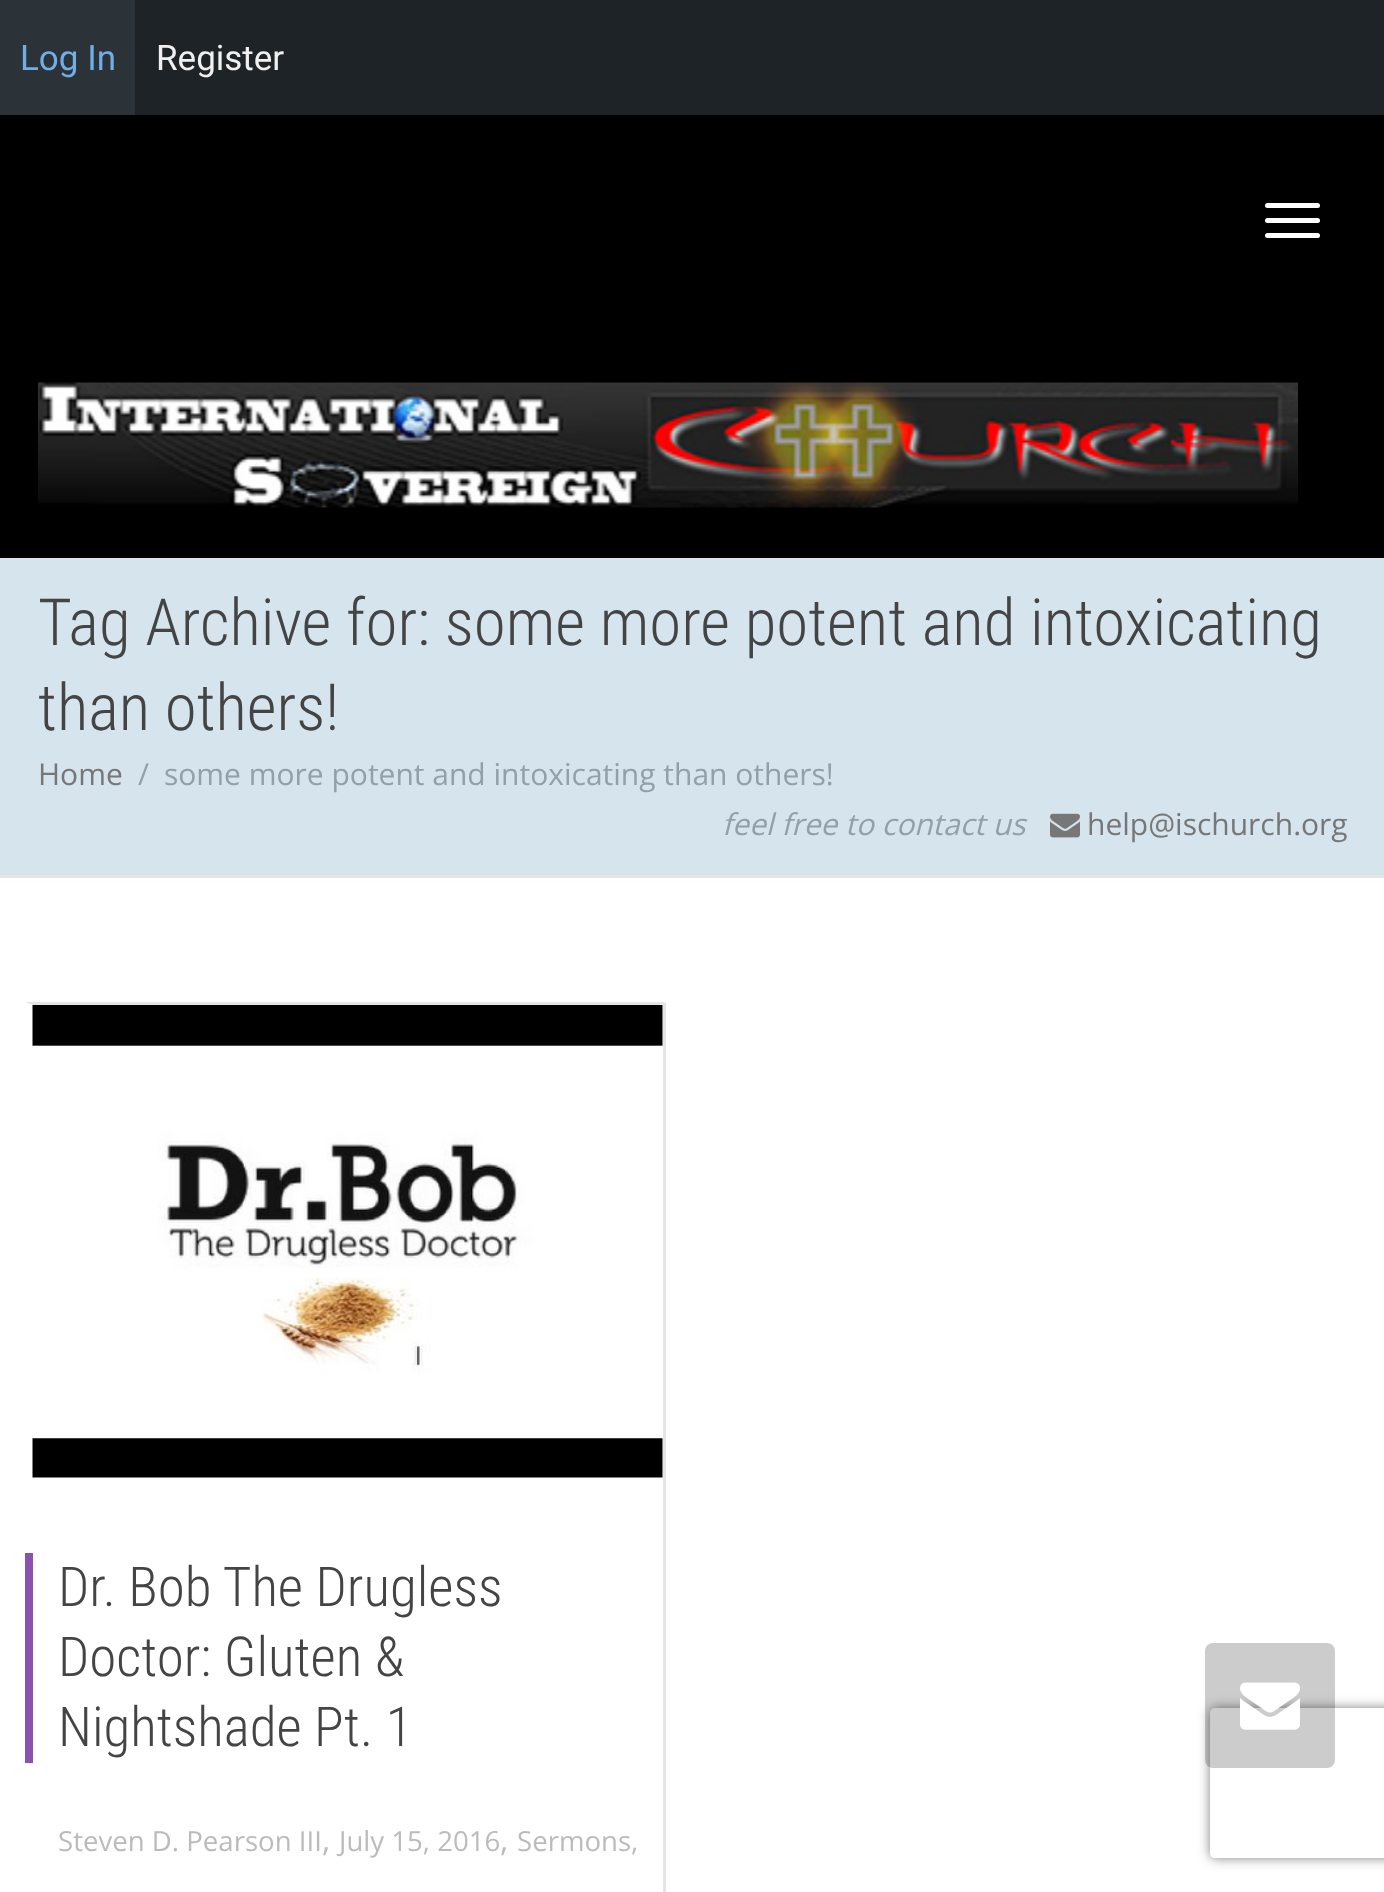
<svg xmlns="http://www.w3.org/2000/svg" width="1384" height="1892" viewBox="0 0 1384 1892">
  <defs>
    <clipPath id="clip1"><path d="M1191 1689H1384V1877H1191ZM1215 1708H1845C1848 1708 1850 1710 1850 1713V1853C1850 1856 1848 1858 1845 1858H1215C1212 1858 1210 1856 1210 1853V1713C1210 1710 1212 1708 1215 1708Z" clip-rule="evenodd"/></clipPath>
  </defs>
  <rect width="100%" height="100%" fill="#fff"/>
  <path d="M135 0h1249v115H135z" fill="#1d2327"/>
  <path d="M0 0h135v115H0z" fill="#2c3338"/>
  <path d="M0 115h1384v3H0z" fill="#020202"/>
  <path d="M0 118h1384v437H0z" fill="#000"/>
  <path d="M0 555h1384v3H0z" fill="#020202"/>
  <rect x="1265" y="203" width="55" height="5" rx="2.5" fill="#fff"/>
  <rect x="1265" y="218" width="55" height="5" rx="2.5" fill="#fff"/>
  <rect x="1265" y="233" width="55" height="5" rx="2.5" fill="#fff"/>
  <image x="38" y="382" width="1260" height="126" href="img/1.png"/>
  <path d="M0 558h1384v317H0z" fill="#d5e4ed"/>
  <path d="M0 875h1384v3H0z" fill="#e5e5e5"/>
  <image x="1050" y="813" width="30" height="25" href="img/2.png"/>
  <path d="M25 1002H665L662 1005H32Z" fill="#e5e5e5"/>
  <path d="M663 1003h3v889H663z" fill="#e5e5e5"/>
  <path d="M25 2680V1002L32 1005V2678Z" fill="#fff"/>
  <image x="32" y="1005" width="631" height="473" href="img/3.png"/>
  <path d="M25 1553h8v210H25z" fill="#8a52ad"/>
  <g clip-path="url(#clip1)">
    <rect x="1210" y="1708" width="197" height="150" rx="5" fill="#808080" filter="blur(6px)"/>
  </g>
  <rect x="1205" y="1643" width="130" height="125" rx="8" fill="#00000033"/>
  <image x="1240" y="1682" width="60" height="48" href="img/4.png"/>
  <text x="20" y="70" font-family="Roboto" font-size="35" fill="#72aee6">Log In</text>
  <text x="156" y="70" font-family="Roboto" font-size="35" fill="#f0f0f1">Register</text>
  <g font-family="Roboto Condensed" font-size="65" font-weight="300" fill="#444">
    <text x="38" y="645">Tag Archive for: some more potent and intoxicating</text>
    <text x="38" y="730">than others!</text>
  </g>
  <text x="38" y="785" font-family="Open Sans" font-size="30" fill="#777">Home</text>
  <g font-family="Open Sans" font-size="30" fill="#91a0a9">
    <text x="138" y="785">/</text>
    <text x="164" y="785">some more potent and intoxicating than others!</text>
  </g>
  <text x="722" y="835" font-family="Open Sans" font-size="30" font-style="italic" fill="#91a0a9">feel free to contact us</text>
  <text x="1087" y="835" font-family="Open Sans" font-size="30" fill="#777">help@ischurch.org</text>
  <g font-family="Roboto Condensed" font-size="55" font-weight="300" fill="#444">
    <text x="58" y="1606">Dr. Bob The Drugless</text>
    <text x="58" y="1676">Doctor: Gluten &amp;</text>
    <text x="58" y="1746">Nightshade Pt. 1</text>
  </g>
  <text x="58" y="1851" font-family="Open Sans" font-size="27.6" fill="#bbb">Steven D. Pearson III</text>
  <text x="322" y="1851" font-family="Open Sans" font-size="32" fill="#bbb">,</text>
  <text x="339" y="1851" font-family="Open Sans" font-size="27.6" fill="#bbb">July 15, 2016</text>
  <text x="500" y="1851" font-family="Open Sans" font-size="32" fill="#bbb">,</text>
  <text x="517" y="1851" font-family="Open Sans" font-size="27.6" fill="#bbb">Sermons,</text>
</svg>
